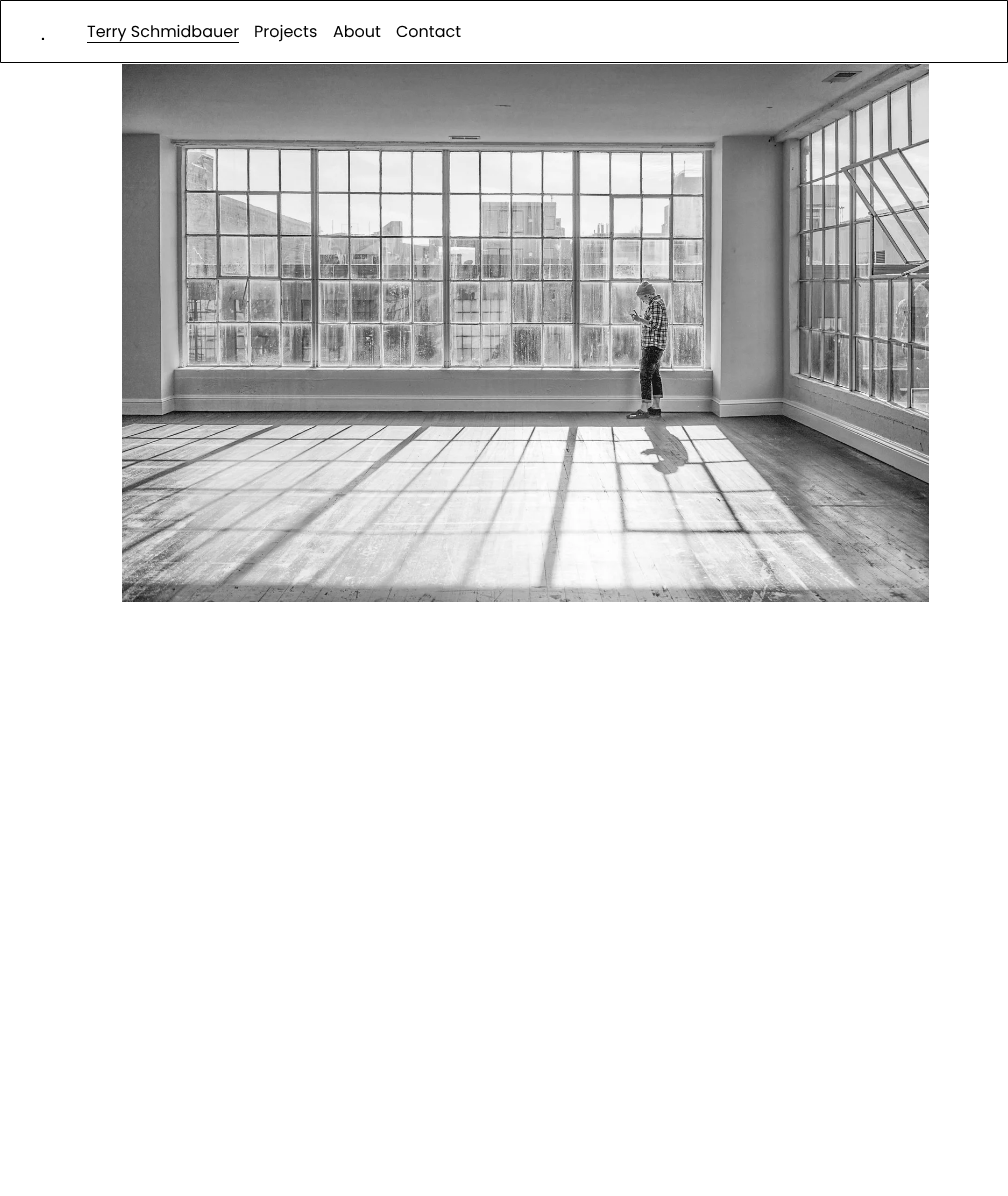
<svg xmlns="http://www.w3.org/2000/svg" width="1008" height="1196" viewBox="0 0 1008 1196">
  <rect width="100%" height="100%" fill="#fff"/>
  <path d="M0.5 0.5h1007v62H0.5z" fill="none" stroke="#000"/>
  <path d="M87 42h152v1H87z" fill="#000"/>
  <image x="122" y="64" width="807" height="538" href="img/1.png"/>
  <text x="40" y="40" font-family="Manrope" font-size="22" font-weight="500" fill="#000">.</text>
  <g font-family="Poppins" font-size="16" fill="#000">
    <text x="87" y="37">Terry Schmidbauer</text>
    <text x="254" y="37">Projects</text>
    <text x="333" y="37">About</text>
    <text x="396" y="37">Contact</text>
  </g>
</svg>
